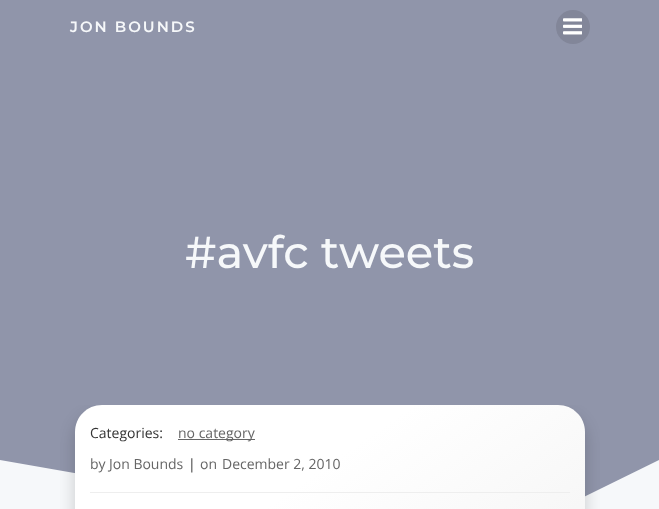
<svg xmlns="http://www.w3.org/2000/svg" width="659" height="509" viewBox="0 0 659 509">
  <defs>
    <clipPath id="clip1"><path d="M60 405h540v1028H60z"/></clipPath>
    <linearGradient id="g1" gradientUnits="userSpaceOnUse" x1="198" y1="319" x2="462" y2="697"><stop offset="0.42" stop-color="#fff"/><stop offset="1" stop-color="#f3f3f3"/></linearGradient>
  </defs>
  <rect width="100%" height="100%" fill="#9095aa"/>
  <circle cx="573" cy="27" r="17" fill="#828699"/>
  <image x="563" y="18" width="19" height="17" href="img/1.png"/>
  <path d="M486 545L0 460V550H659V460Z" fill="#f6f8fa"/>
  <g clip-path="url(#clip1)">
    <rect x="73" y="413" width="514" height="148" rx="29" fill="#00000026" filter="blur(7.5px)"/>
  </g>
  <path d="M102 405H558C573 405 585 417 585 432V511C585 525 574 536 560 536H100C86 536 75 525 75 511V432C75 417 87 405 102 405Z" fill="url(#g1)"/>
  <path d="M90 492h480v1H90z" fill="#eee"/>
  <path d="M178 439h77v1H178z" fill="#666"/>
  <text x="70" y="32" font-family="Montserrat" font-size="15" font-weight="600" letter-spacing="2" fill="#f6f8fa">JON BOUNDS</text>
  <text x="185" y="268" font-family="Montserrat" font-size="44.75" font-weight="500" fill="#f6f8fa">#avfc tweets</text>
  <text x="90" y="438" font-family="Open Sans" font-size="14" fill="#333">Categories:</text>
  <g font-family="Open Sans" font-size="14" fill="#666">
    <text x="178" y="438">no category</text>
    <text x="90" y="469">by</text>
    <text x="109" y="469">Jon Bounds</text>
  </g>
  <text x="188" y="469" font-family="Open Sans" font-size="14" fill="#333">|</text>
  <g font-family="Open Sans" font-size="14" fill="#666">
    <text x="200" y="469">on</text>
    <text x="222" y="469">December 2, 2010</text>
  </g>
</svg>
